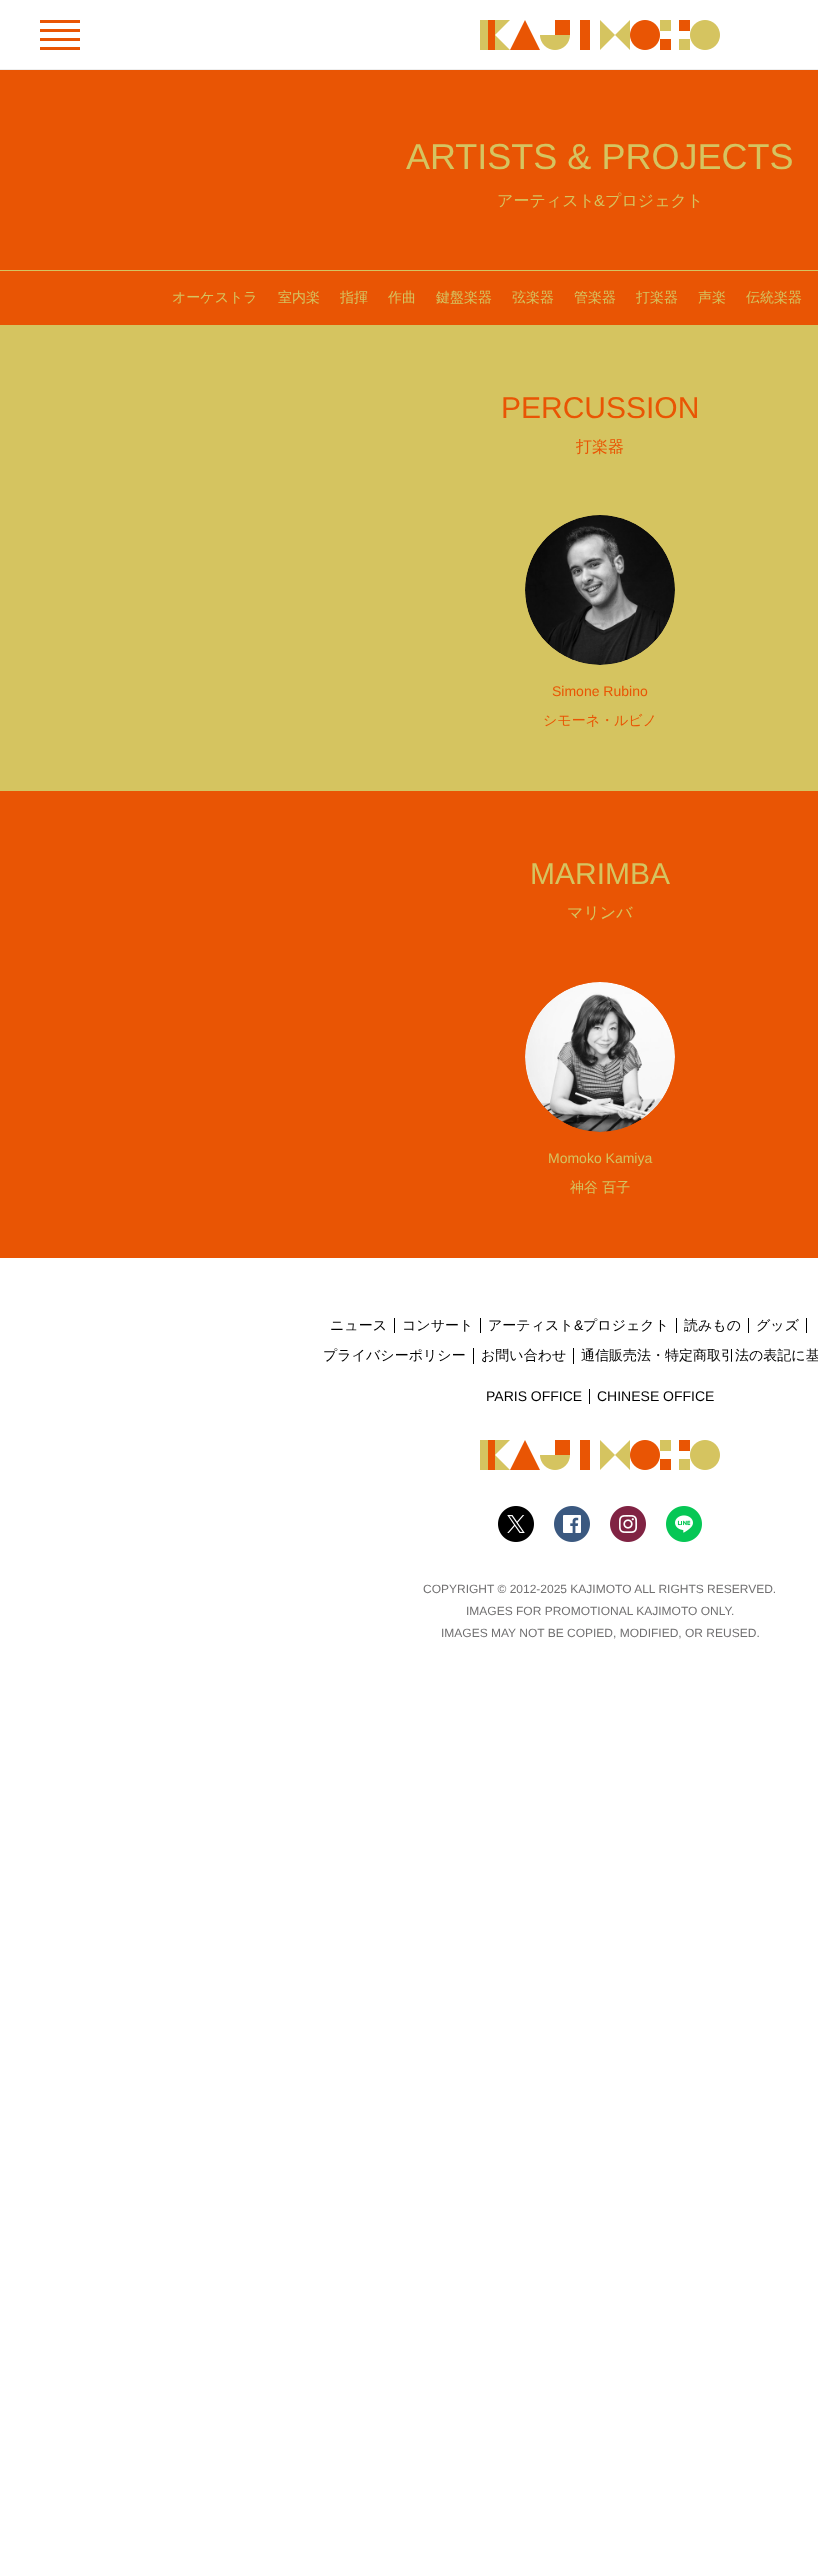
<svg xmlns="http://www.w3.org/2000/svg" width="818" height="2567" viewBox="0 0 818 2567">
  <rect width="100%" height="100%" fill="#fff"/>
  <path d="M0 69h818v1H0z" fill="#eee"/>
  <path d="M40 20h40v3H40z" fill="#e95504"/>
  <path d="M40 29h40v3H40z" fill="#e95504"/>
  <path d="M40 38h40v3H40z" fill="#e95504"/>
  <path d="M40 47h40v3H40z" fill="#e95504"/>
  <image x="480" y="20" width="240" height="30" href="img/1.png"/>
  <path d="M0 70h818v200H0z" fill="#e95504"/>
  <path d="M0 271h818v54H0z" fill="#e95504"/>
  <path d="M0 270h818v1H0z" fill="#d5c460"/>
  <path d="M0 325h818v466H0z" fill="#d5c460"/>
  <image x="525" y="515" width="150" height="150" href="img/2.png"/>
  <path d="M0 791h818v467H0z" fill="#e95504"/>
  <image x="525" y="982" width="150" height="150" href="img/3.png"/>
  <path d="M394 1318h1v15H394z" fill="#000"/>
  <path d="M480 1318h1v15H480z" fill="#000"/>
  <path d="M676 1318h1v15H676z" fill="#000"/>
  <path d="M748 1318h1v15H748z" fill="#000"/>
  <path d="M806 1318h1v15H806z" fill="#000"/>
  <path d="M473 1348h1v16H473z" fill="#000"/>
  <path d="M573 1348h1v16H573z" fill="#000"/>
  <path d="M589 1389h1v15H589z" fill="#000"/>
  <image x="480" y="1440" width="240" height="30" href="img/1.png"/>
  <image x="498" y="1506" width="36" height="36" href="img/4.png"/>
  <image x="554" y="1506" width="36" height="36" href="img/5.png"/>
  <image x="610" y="1506" width="36" height="36" href="img/6.png"/>
  <image x="666" y="1506" width="36" height="36" href="img/7.png"/>
  <text x="406" y="169" font-family="Liberation Sans" font-size="36" fill="#d5c460">ARTISTS &amp; PROJECTS</text>
  <text x="497" y="206" font-family="WenQuanYi Zen Hei" font-size="16" font-weight="500" fill="#d5c460">アーティスト</text>
  <text x="594" y="206" font-family="Liberation Sans" font-size="16" fill="#d5c460">&amp;</text>
  <text x="605" y="206" font-family="WenQuanYi Zen Hei" font-size="16" font-weight="500" fill="#d5c460">プロジェクト</text>
  <g font-family="WenQuanYi Zen Hei" font-size="14" font-weight="500" fill="#d5c460">
    <text x="172" y="302">オーケストラ</text>
    <text x="278" y="302">室内楽</text>
    <text x="340" y="302">指揮</text>
    <text x="388" y="302">作曲</text>
    <text x="436" y="302">鍵盤楽器</text>
    <text x="512" y="302">弦楽器</text>
    <text x="574" y="302">管楽器</text>
    <text x="636" y="302">打楽器</text>
    <text x="698" y="302">声楽</text>
    <text x="746" y="302">伝統楽器</text>
  </g>
  <text x="501" y="418" font-family="Liberation Sans" font-size="30" fill="#e95504">PERCUSSION</text>
  <text x="576" y="452" font-family="WenQuanYi Zen Hei" font-size="16" font-weight="500" fill="#e95504">打楽器</text>
  <text x="552" y="696" font-family="Liberation Sans" font-size="14" fill="#e95504">Simone Rubino</text>
  <text x="543" y="725" font-family="WenQuanYi Zen Hei" font-size="14" font-weight="500" fill="#e95504">シモーネ・ルビノ</text>
  <text x="530" y="884" font-family="Liberation Sans" font-size="30" fill="#d5c460">MARIMBA</text>
  <text x="567" y="918" font-family="WenQuanYi Zen Hei" font-size="16" font-weight="500" fill="#d5c460">マリンバ</text>
  <text x="548" y="1163" font-family="Liberation Sans" font-size="14" fill="#d5c460">Momoko Kamiya</text>
  <text x="570" y="1192" font-family="WenQuanYi Zen Hei" font-size="14" font-weight="500" fill="#d5c460">神谷 百子</text>
  <g font-family="WenQuanYi Zen Hei" font-size="14" font-weight="500" fill="#000">
    <text x="330" y="1330">ニュース</text>
    <text x="402" y="1330">コンサート</text>
    <text x="488" y="1330">アーティスト</text>
  </g>
  <text x="574" y="1330" font-family="Liberation Sans" font-size="14" fill="#000">&amp;</text>
  <g font-family="WenQuanYi Zen Hei" font-size="14" font-weight="500" fill="#000">
    <text x="583" y="1330">プロジェクト</text>
    <text x="684" y="1330">読みもの</text>
    <text x="756" y="1330">グッズ</text>
    <text x="323" y="1360">プライバシーポリシー</text>
    <text x="481" y="1360">お問い合わせ</text>
    <text x="581" y="1360">通信販売法・特定商取引法の表記に基</text>
  </g>
  <g font-family="Liberation Sans" font-size="14" fill="#000">
    <text x="486" y="1401">PARIS OFFICE</text>
    <text x="597" y="1401">CHINESE OFFICE</text>
  </g>
  <g font-family="Liberation Sans" font-size="12" fill="#717071">
    <text x="423" y="1593">COPYRIGHT © 2012-2025 KAJIMOTO ALL RIGHTS RESERVED.</text>
    <text x="466" y="1615">IMAGES FOR PROMOTIONAL KAJIMOTO ONLY.</text>
    <text x="441" y="1637">IMAGES MAY NOT BE COPIED, MODIFIED, OR REUSED.</text>
  </g>
</svg>
